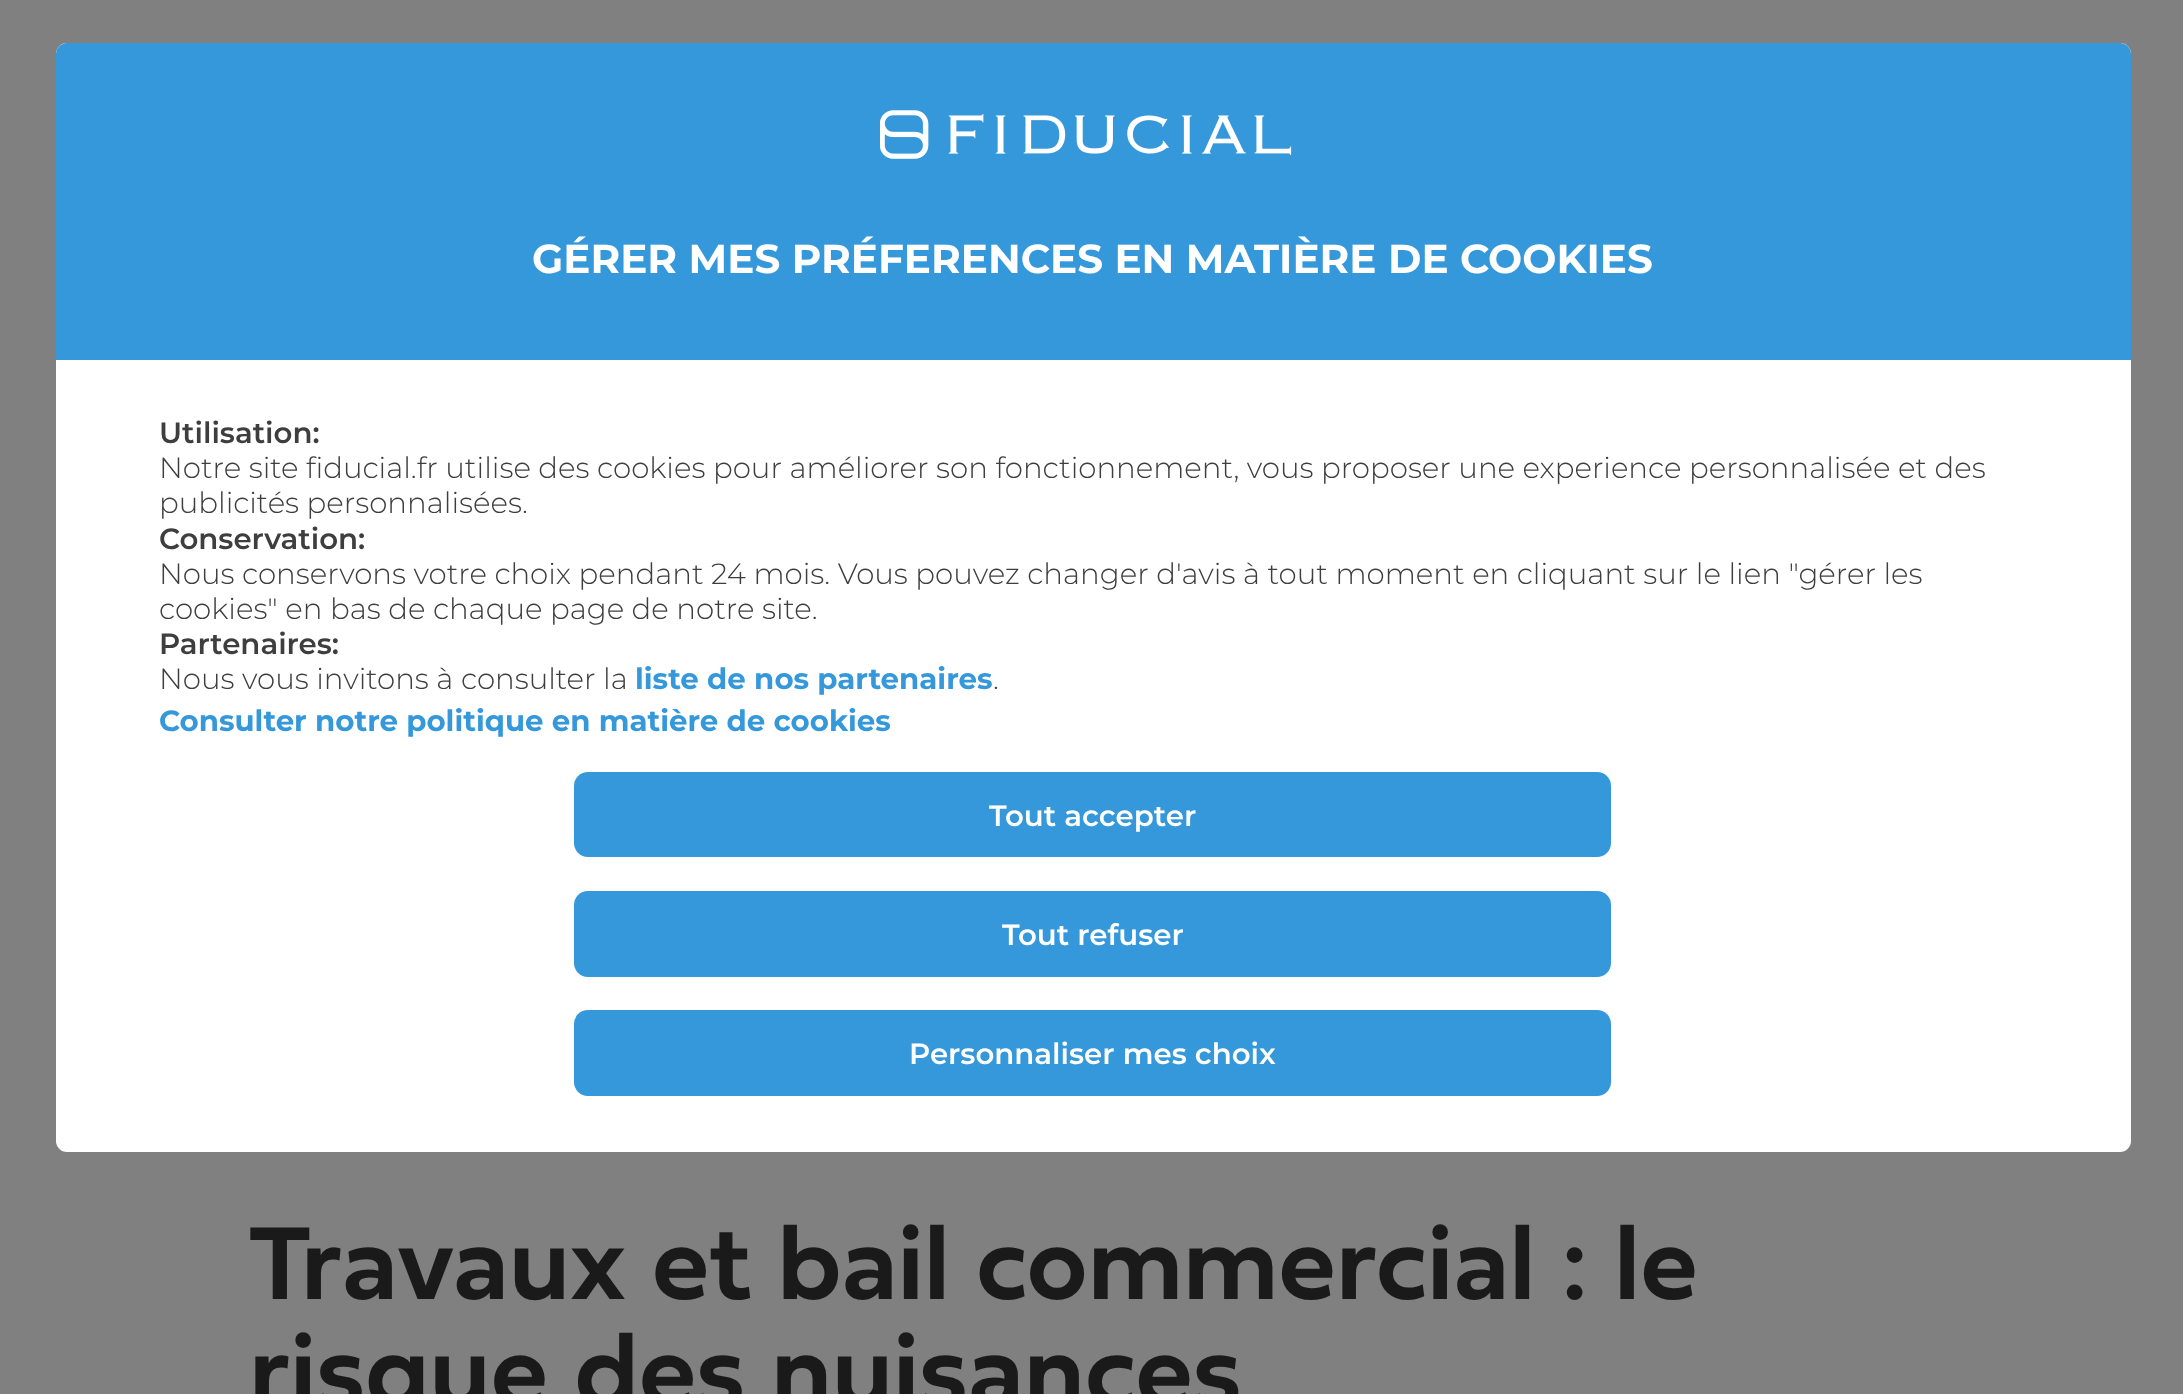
<svg xmlns="http://www.w3.org/2000/svg" width="2183" height="1394" viewBox="0 0 2183 1394">
  <rect width="100%" height="100%" fill="#808080"/>
  <rect x="56" y="43" width="2075" height="1109" rx="11" fill="#fff"/>
  <path d="M67 43H2120C2126 43 2131 48 2131 54V360H56V54C56 48 61 43 67 43Z" fill="#3498db"/>
  <image x="880" y="110" width="412" height="49" href="img/1.png"/>
  <rect x="574" y="772" width="1037" height="85" rx="14" fill="#3498db"/>
  <rect x="574" y="891" width="1037" height="86" rx="14" fill="#3498db"/>
  <rect x="574" y="1010" width="1037" height="86" rx="14" fill="#3498db"/>
  <text x="532" y="273" font-family="Montserrat" font-size="40.5" font-weight="bold" fill="#fff">GÉRER MES PRÉFERENCES EN MATIÈRE DE COOKIES</text>
  <text x="159" y="443" font-family="Montserrat" font-size="29.25" font-weight="600" fill="#3e3e3e">Utilisation:</text>
  <g font-family="Montserrat" font-size="29.25" font-weight="300" fill="#3e3e3e">
    <text x="159" y="478">Notre site fiducial.fr utilise des cookies pour améliorer son fonctionnement, vous proposer une experience personnalisée et des</text>
    <text x="159" y="513">publicités personnalisées.</text>
  </g>
  <text x="159" y="549" font-family="Montserrat" font-size="29.25" font-weight="600" fill="#3e3e3e">Conservation:</text>
  <g font-family="Montserrat" font-size="29.25" font-weight="300" fill="#3e3e3e">
    <text x="159" y="584">Nous conservons votre choix pendant 24 mois. Vous pouvez changer d'avis à tout moment en cliquant sur le lien "gérer les</text>
    <text x="159" y="619">cookies" en bas de chaque page de notre site.</text>
  </g>
  <text x="159" y="654" font-family="Montserrat" font-size="29.25" font-weight="600" fill="#3e3e3e">Partenaires:</text>
  <text x="159" y="689" font-family="Montserrat" font-size="29.25" font-weight="300" fill="#3e3e3e">Nous vous invitons à consulter la</text>
  <text x="635" y="689" font-family="Montserrat" font-size="29.25" font-weight="bold" fill="#3498db">liste de nos partenaires</text>
  <text x="993" y="689" font-family="Montserrat" font-size="29.25" font-weight="300" fill="#3e3e3e">.</text>
  <text x="159" y="731" font-family="Montserrat" font-size="29.25" font-weight="bold" fill="#3498db">Consulter notre politique en matière de cookies</text>
  <g font-family="Montserrat" font-size="29.25" font-weight="600" fill="#fff">
    <text x="989" y="826">Tout accepter</text>
    <text x="1002" y="945">Tout refuser</text>
    <text x="909" y="1064">Personnaliser mes choix</text>
  </g>
  <g font-family="'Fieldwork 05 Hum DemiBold'" font-size="108" font-weight="600" fill="#1a1a1a">
    <text x="249" y="1299">Travaux et bail commercial : le</text>
    <text x="249" y="1407">risque des nuisances</text>
  </g>
</svg>
